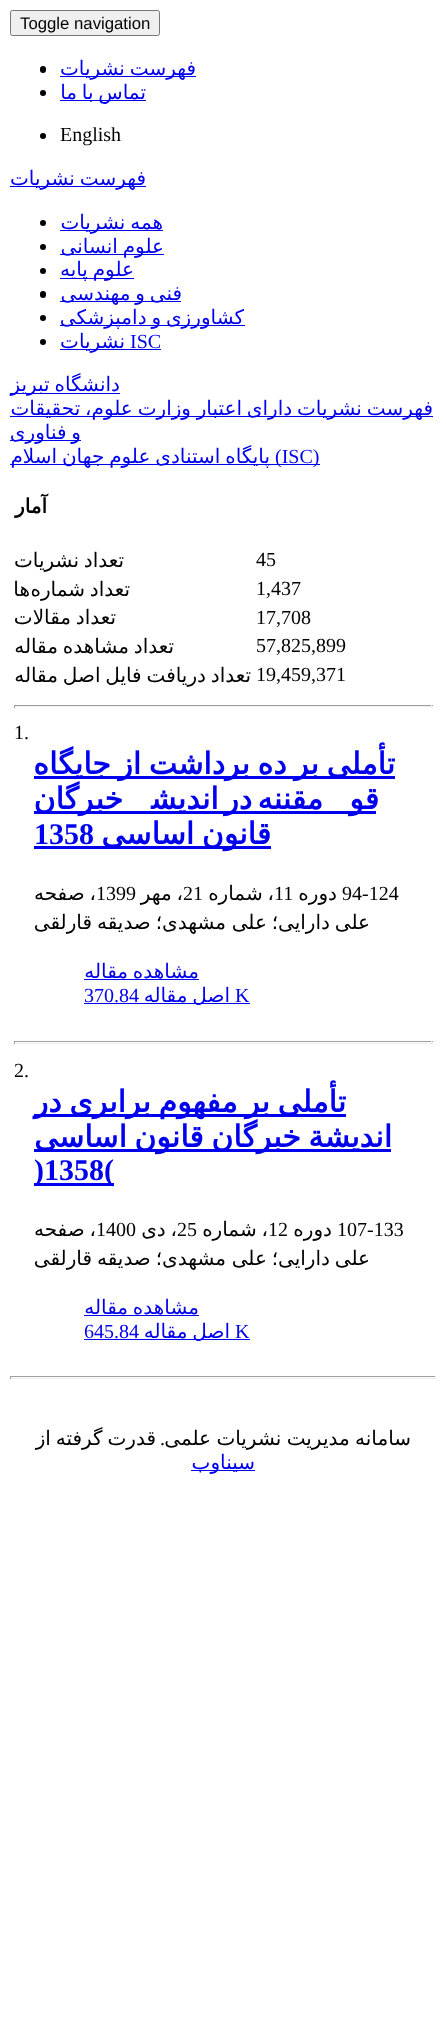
<svg xmlns="http://www.w3.org/2000/svg" width="446" height="2029" viewBox="0 0 446 2029">
  <rect width="100%" height="100%" fill="#fff"/>
  <rect x="10.5" y="10.5" width="149" height="25" rx="2" fill="#efefef" stroke="#767676"/>
  <path d="M60 76h136v1H60z" fill="#00e"/>
  <rect x="40" y="66" width="6" height="7" rx="3" fill="#000"/>
  <path d="M60 100h86v1H60z" fill="#00e"/>
  <circle cx="43" cy="93" r="3" fill="#000"/>
  <circle cx="43" cy="136" r="3" fill="#000"/>
  <path d="M10 186h136v1H10z" fill="#00e"/>
  <path d="M60 230h103v1H60z" fill="#00e"/>
  <circle cx="43" cy="223" r="3" fill="#000"/>
  <path d="M60 254h104v1H60z" fill="#00e"/>
  <circle cx="43" cy="247" r="3" fill="#000"/>
  <path d="M60 278h74v1H60z" fill="#00e"/>
  <circle cx="43" cy="271" r="3" fill="#000"/>
  <path d="M60 301h121v1H60z" fill="#00e"/>
  <rect x="40" y="291" width="6" height="7" rx="3" fill="#000"/>
  <path d="M60 325h185v1H60z" fill="#00e"/>
  <circle cx="43" cy="318" r="3" fill="#000"/>
  <path d="M60 349h101v1H60z" fill="#00e"/>
  <circle cx="43" cy="342" r="3" fill="#000"/>
  <path d="M10 393h110v1H10z" fill="#00e"/>
  <path d="M10 416h423v1H10z" fill="#00e"/>
  <path d="M10 440h71v1H10z" fill="#00e"/>
  <path d="M270 464h50v1H270z" fill="#00e"/>
  <path d="M10 464h260v1H10z" fill="#00e"/>
  <path d="M14 705h419v1H14z" fill="#9f9f9f"/>
  <path d="M431 705h1v3H431z" fill="#eee"/>
  <path d="M14 706h419v1H14z" fill="#eee"/>
  <path d="M14 705h1v3H14z" fill="#9f9f9f"/>
  <path d="M34 776h361v3H34z" fill="#00e"/>
  <path d="M34 811h342v3H34z" fill="#00e"/>
  <path d="M34 846h237v3H34z" fill="#00e"/>
  <path d="M84 979h115v1H84z" fill="#00e"/>
  <path d="M84 1003h166v1H84z" fill="#00e"/>
  <path d="M14 1041h419v1H14z" fill="#9f9f9f"/>
  <path d="M431 1041h1v3H431z" fill="#eee"/>
  <path d="M14 1043h419v1H14z" fill="#eee"/>
  <path d="M14 1041h1v3H14z" fill="#9f9f9f"/>
  <path d="M34 1114h312v3H34z" fill="#00e"/>
  <path d="M34 1149h357v3H34z" fill="#00e"/>
  <path d="M34 1183h80v3H34z" fill="#00e"/>
  <path d="M84 1315h115v1H84z" fill="#00e"/>
  <path d="M84 1339h166v1H84z" fill="#00e"/>
  <path d="M10 1376h426v1H10z" fill="#9f9f9f"/>
  <path d="M435 1376h1v3H435z" fill="#eee"/>
  <path d="M10 1378h426v1H10z" fill="#eee"/>
  <path d="M10 1376h1v3H10z" fill="#9f9f9f"/>
  <path d="M191 1470h64v1H191z" fill="#00e"/>
  <text x="20" y="29" font-family="Liberation Sans" font-size="16.75" fill="#000">Toggle navigation</text>
  <g font-family="DejaVu Sans" font-size="20" direction="rtl" fill="#00e">
    <text x="196" y="75" word-spacing="-1.5">فهرست نشریات</text>
    <text x="146" y="99" word-spacing="-1.5">تماس با ما</text>
  </g>
  <text x="60" y="141" font-family="Liberation Serif" font-size="20" fill="#000">English</text>
  <g font-family="DejaVu Sans" font-size="20" direction="rtl" fill="#00e">
    <text x="146" y="185" word-spacing="-1.5">فهرست نشریات</text>
    <text x="163" y="229" word-spacing="-1.5">همه نشریات</text>
    <text x="164" y="253" word-spacing="-1.5">علوم انسانی</text>
    <text x="134" y="276" word-spacing="-1.5">علوم پایه</text>
    <text x="182" y="300" word-spacing="-1.5">فنی و مهندسی</text>
    <text x="244" y="324" word-spacing="-1.5">کشاورزی و دامپزشکی</text>
  </g>
  <text x="130" y="348" font-family="Liberation Serif" font-size="20" fill="#00e">ISC</text>
  <g font-family="DejaVu Sans" font-size="20" direction="rtl" fill="#00e">
    <text x="125" y="348">نشریات</text>
    <text x="120" y="391" word-spacing="-1.5">دانشگاه تبریز</text>
    <text x="433" y="415" word-spacing="-1.5">فهرست نشریات دارای اعتبار</text>
    <text x="191" y="415" word-spacing="-1.5">وزارت علوم، تحقیقات</text>
    <text x="81" y="439" word-spacing="-1.5">و فناوری</text>
  </g>
  <text x="275" y="463" font-family="Liberation Serif" font-size="20" fill="#00e">(ISC)</text>
  <text x="270" y="463" word-spacing="-1.5" font-family="DejaVu Sans" font-size="20" direction="rtl" fill="#00e">پایگاه استنادی علوم جهان اسلام</text>
  <text x="47" y="513" font-family="DejaVu Sans" font-size="20" font-weight="bold" direction="rtl" fill="#000">آمار</text>
  <text x="256" y="566" font-family="Liberation Serif" font-size="20" fill="#000">45</text>
  <text x="124" y="567" word-spacing="-1.5" font-family="DejaVu Sans" font-size="20" direction="rtl" fill="#000">تعداد نشریات</text>
  <text x="256" y="595" font-family="Liberation Serif" font-size="20" fill="#000">1,437</text>
  <g font-family="DejaVu Sans" font-size="20" direction="rtl" fill="#000">
    <text x="130" y="596" word-spacing="-1.5">تعداد شماره</text>
    <text x="30" y="596">ها</text>
  </g>
  <text x="256" y="624" font-family="Liberation Serif" font-size="20" fill="#000">17,708</text>
  <text x="116" y="624" word-spacing="-1.5" font-family="DejaVu Sans" font-size="20" direction="rtl" fill="#000">تعداد مقالات</text>
  <text x="256" y="652" font-family="Liberation Serif" font-size="20" fill="#000">57,825,899</text>
  <text x="174" y="653" word-spacing="-1.5" font-family="DejaVu Sans" font-size="20" direction="rtl" fill="#000">تعداد مشاهده مقاله</text>
  <text x="256" y="681" font-family="Liberation Serif" font-size="20" fill="#000">19,459,371</text>
  <text x="251" y="682" word-spacing="-1.5" font-family="DejaVu Sans" font-size="20" direction="rtl" fill="#000">تعداد دریافت فایل اصل مقاله</text>
  <text x="14" y="739" font-family="Liberation Serif" font-size="20" fill="#000">1.</text>
  <g font-family="DejaVu Sans" font-size="30" font-weight="bold" direction="rtl" fill="#00e">
    <text x="395" y="774" word-spacing="-2">تأملی بر ده برداشت از جایگاه</text>
    <text x="379" y="809">قو</text>
    <text x="323" y="809" word-spacing="-4">مقننه در اندیش‍</text>
    <text x="123" y="809">خبرگان</text>
    <text x="271" y="844" word-spacing="-2">قانون اساسی</text>
  </g>
  <text x="34" y="844" font-family="Liberation Serif" font-size="30" font-weight="bold" fill="#00e">1358</text>
  <text x="342" y="900" font-family="Liberation Serif" font-size="20" fill="#000">94-124</text>
  <text x="337" y="900" font-family="DejaVu Sans" font-size="20" direction="rtl" fill="#000">دوره</text>
  <text x="274" y="900" font-family="Liberation Serif" font-size="20" fill="#000">11</text>
  <text x="274" y="900" word-spacing="-1.5" font-family="DejaVu Sans" font-size="20" direction="rtl" fill="#000">، شماره</text>
  <text x="183" y="900" font-family="Liberation Serif" font-size="20" fill="#000">21</text>
  <text x="183" y="900" word-spacing="-1.5" font-family="DejaVu Sans" font-size="20" direction="rtl" fill="#000">، مهر</text>
  <text x="96" y="900" font-family="Liberation Serif" font-size="20" fill="#000">1399</text>
  <g font-family="DejaVu Sans" font-size="20" direction="rtl" fill="#000">
    <text x="96" y="900" word-spacing="-1.5">، صفحه</text>
    <text x="370" y="929">علی</text>
    <text x="330" y="929" word-spacing="-1.5">دارایی؛ علی</text>
    <text x="226" y="929" word-spacing="-1.5">مشهدی؛ صدیقه</text>
    <text x="92" y="929">قارلقی</text>
  </g>
  <text x="199" y="978" word-spacing="-1.5" font-family="DejaVu Sans" font-size="20" direction="rtl" fill="#00e">مشاهده مقاله</text>
  <text x="235" y="1002" font-family="Liberation Serif" font-size="20" fill="#00e">K</text>
  <text x="230" y="1002" word-spacing="-1.5" font-family="DejaVu Sans" font-size="20" direction="rtl" fill="#00e">اصل مقاله</text>
  <text x="84" y="1002" font-family="Liberation Serif" font-size="20" fill="#00e">370.84</text>
  <text x="14" y="1077" font-family="Liberation Serif" font-size="20" fill="#000">2.</text>
  <g font-family="DejaVu Sans" font-size="30" font-weight="bold" direction="rtl" fill="#00e">
    <text x="346" y="1112" word-spacing="-2">تأملی بر مفهوم برابری در</text>
    <text x="392" y="1147" word-spacing="-2">اندیشة خبرگان قانون اساسی</text>
  </g>
  <text x="34" y="1180" font-family="Liberation Serif" font-size="30" font-weight="bold" fill="#00e">)1358(</text>
  <text x="337" y="1236" font-family="Liberation Serif" font-size="20" fill="#000">107-133</text>
  <text x="332" y="1236" font-family="DejaVu Sans" font-size="20" direction="rtl" fill="#000">دوره</text>
  <text x="268" y="1236" font-family="Liberation Serif" font-size="20" fill="#000">12</text>
  <text x="268" y="1236" word-spacing="-1.5" font-family="DejaVu Sans" font-size="20" direction="rtl" fill="#000">، شماره</text>
  <text x="177" y="1236" font-family="Liberation Serif" font-size="20" fill="#000">25</text>
  <text x="177" y="1236" word-spacing="-1.5" font-family="DejaVu Sans" font-size="20" direction="rtl" fill="#000">، دی</text>
  <text x="96" y="1236" font-family="Liberation Serif" font-size="20" fill="#000">1400</text>
  <g font-family="DejaVu Sans" font-size="20" direction="rtl" fill="#000">
    <text x="96" y="1236" word-spacing="-1.5">، صفحه</text>
    <text x="370" y="1265">علی</text>
    <text x="330" y="1265" word-spacing="-1.5">دارایی؛ علی</text>
    <text x="226" y="1265" word-spacing="-1.5">مشهدی؛ صدیقه</text>
    <text x="92" y="1265">قارلقی</text>
  </g>
  <text x="199" y="1314" word-spacing="-1.5" font-family="DejaVu Sans" font-size="20" direction="rtl" fill="#00e">مشاهده مقاله</text>
  <text x="235" y="1338" font-family="Liberation Serif" font-size="20" fill="#00e">K</text>
  <text x="230" y="1338" word-spacing="-1.5" font-family="DejaVu Sans" font-size="20" direction="rtl" fill="#00e">اصل مقاله</text>
  <text x="84" y="1338" font-family="Liberation Serif" font-size="20" fill="#00e">645.84</text>
  <text x="411" y="1445" word-spacing="-1" font-family="DejaVu Sans" font-size="20" direction="rtl" fill="#000">سامانه مدیریت نشریات علمی</text>
  <text x="165" y="1445" font-family="Liberation Serif" font-size="20" direction="rtl" fill="#000">.</text>
  <text x="156" y="1445" word-spacing="-1.5" font-family="DejaVu Sans" font-size="20" direction="rtl" fill="#000">قدرت گرفته از</text>
  <text x="255" y="1469" font-family="DejaVu Sans" font-size="20" direction="rtl" fill="#00e">سیناوب</text>
</svg>
